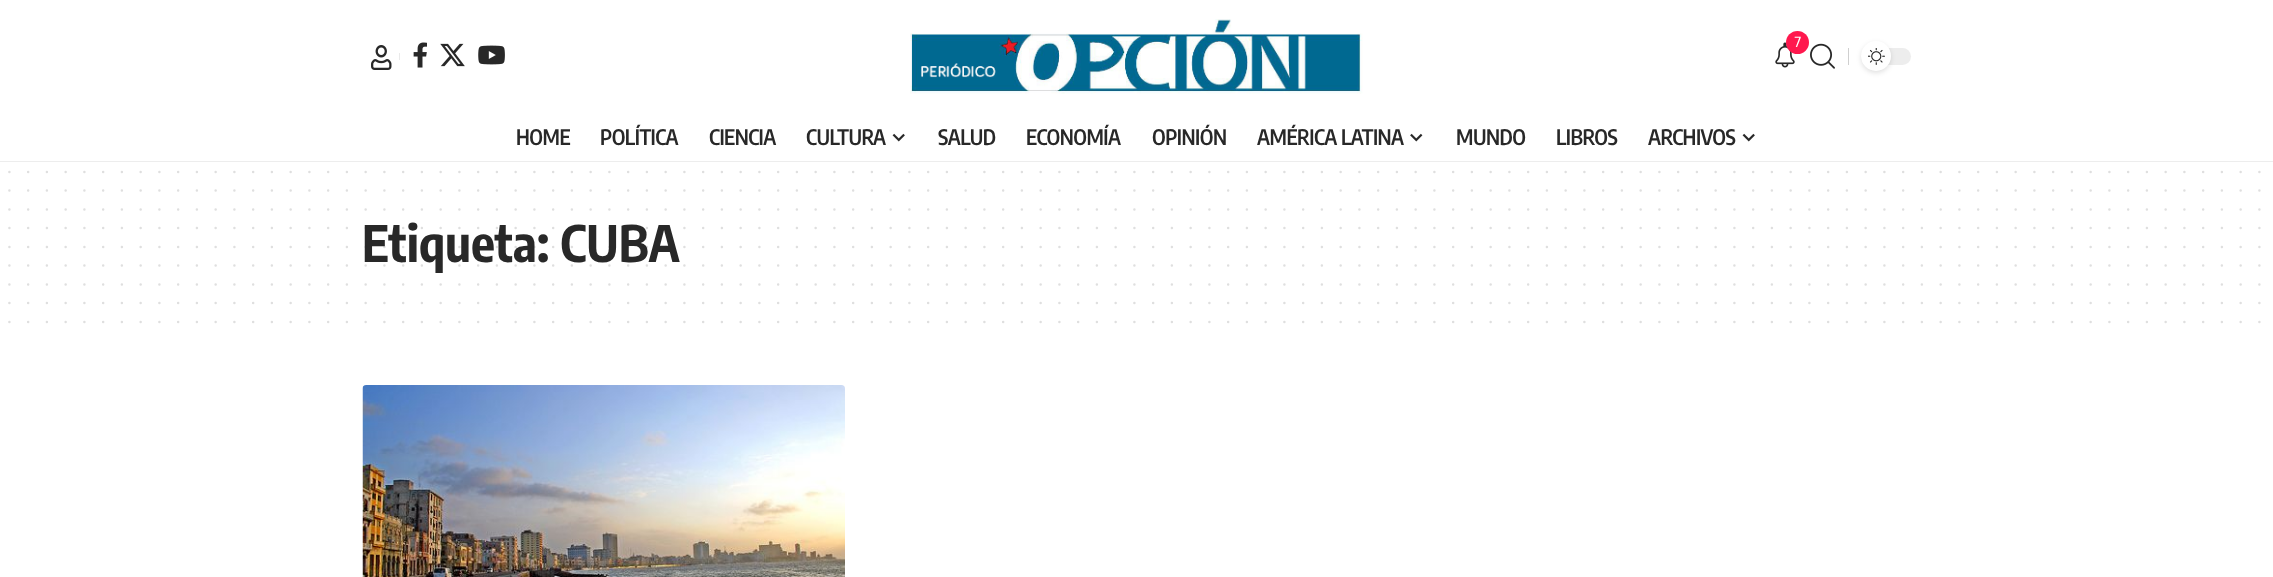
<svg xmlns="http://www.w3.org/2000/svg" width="2273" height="577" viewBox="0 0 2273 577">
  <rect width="100%" height="100%" fill="#fff"/>
  <image x="371" y="45" width="21" height="25" href="img/1.png"/>
  <path d="M399 53h1v7H399z" fill="#eaeaea"/>
  <image x="413" y="42" width="14" height="26" href="img/2.png"/>
  <image x="440" y="43" width="25" height="24" href="img/3.png"/>
  <image x="478" y="45" width="27" height="20" href="img/4.png"/>
  <image x="910" y="19" width="453" height="75" href="img/5.png"/>
  <image x="1775" y="42" width="20" height="26" href="img/6.png"/>
  <circle cx="1797.5" cy="42.5" r="11.5" fill="#ff184e"/>
  <path d="M1848 48h1v17H1848z" fill="#cfcfcf"/>
  <rect x="1861" y="48" width="50" height="17" rx="8.5" fill="#ededed"/>
  <rect x="1861" y="43" width="30" height="30" rx="15" fill="#0000001f" filter="blur(2.5px)"/>
  <circle cx="1876" cy="56" r="15" fill="#fff"/>
  <image x="1868" y="48" width="17" height="17" href="img/7.png"/>
  <image x="1810" y="43" width="25" height="26" href="img/8.png"/>
  <image x="892" y="133" width="13" height="9" href="img/9.png"/>
  <image x="1410" y="133" width="13" height="9" href="img/10.png"/>
  <image x="1742" y="133" width="13" height="9" href="img/9.png"/>
  <path d="M0 161h2273v1H0z" fill="#ededed"/>
  <path d="M9.4 171.9H2259.6" fill="none" stroke="#dfdfdf" stroke-width="2.5" stroke-linecap="round" stroke-dasharray="0 18.75"/>
  <path d="M9.4 190.6H2259.6" fill="none" stroke="#dfdfdf" stroke-width="2.5" stroke-linecap="round" stroke-dasharray="0 18.75"/>
  <path d="M9.4 209.4H2259.6" fill="none" stroke="#dfdfdf" stroke-width="2.5" stroke-linecap="round" stroke-dasharray="0 18.75"/>
  <path d="M9.4 284.4H2259.6" fill="none" stroke="#dfdfdf" stroke-width="2.5" stroke-linecap="round" stroke-dasharray="0 18.75"/>
  <path d="M9.4 303.1H2259.6" fill="none" stroke="#dfdfdf" stroke-width="2.5" stroke-linecap="round" stroke-dasharray="0 18.75"/>
  <path d="M9.4 321.9H2259.6" fill="none" stroke="#dfdfdf" stroke-width="2.5" stroke-linecap="round" stroke-dasharray="0 18.75"/>
  <image x="362" y="385" width="483" height="192" href="img/11.png"/>
  <text x="1794" y="47" font-family="Oxygen" font-size="14" fill="#fff">7</text>
  <g font-family="Encode Sans Condensed" font-size="21.25" font-weight="600" letter-spacing="-0.5" fill="#282828">
    <text x="516" y="145">HOME</text>
    <text x="600" y="145">POLÍTICA</text>
    <text x="709" y="145">CIENCIA</text>
    <text x="806" y="145">CULTURA</text>
    <text x="938" y="145">SALUD</text>
    <text x="1026" y="145">ECONOMÍA</text>
    <text x="1152" y="145">OPINIÓN</text>
    <text x="1257" y="145">AMÉRICA LATINA</text>
    <text x="1456" y="145">MUNDO</text>
    <text x="1556" y="145">LIBROS</text>
    <text x="1648" y="145">ARCHIVOS</text>
  </g>
  <text x="362" y="262" font-family="Encode Sans Condensed" font-size="50" font-weight="bold" fill="#282828">Etiqueta: CUBA</text>
  <path d="M9.4 265.6H2259.6" fill="none" stroke="#28282826" stroke-width="2.5" stroke-linecap="round" stroke-dasharray="0 18.75"/>
  <path d="M9.4 246.9H2259.6" fill="none" stroke="#28282826" stroke-width="2.5" stroke-linecap="round" stroke-dasharray="0 18.75"/>
  <path d="M9.4 228.1H2259.6" fill="none" stroke="#28282826" stroke-width="2.5" stroke-linecap="round" stroke-dasharray="0 18.75"/>
</svg>
